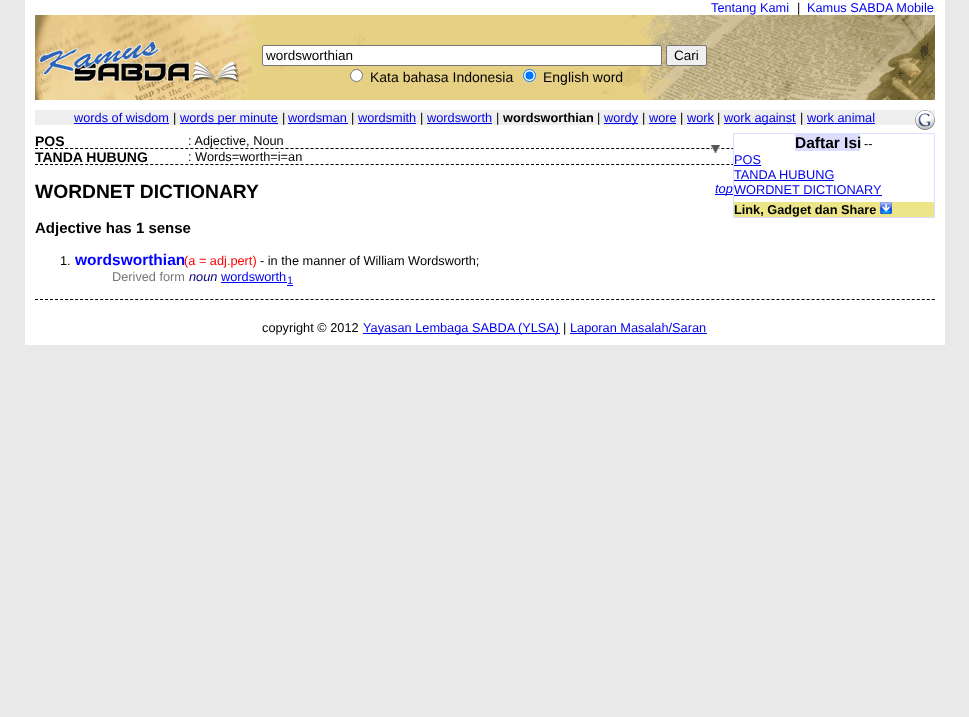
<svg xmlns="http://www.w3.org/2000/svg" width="969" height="717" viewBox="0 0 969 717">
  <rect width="100%" height="100%" fill="#e9e9e9"/>
  <path d="M25 0h920v345H25z" fill="#fff"/>
  <image x="35" y="15" width="900" height="85" href="img/1.png"/>
  <rect x="262.5" y="45.5" width="399" height="20" rx="1.5" fill="#fff" stroke="#767676"/>
  <rect x="666.5" y="45.5" width="40" height="20" rx="1.5" fill="#efefef" stroke="#767676"/>
  <circle cx="356.5" cy="75.5" r="6" fill="#fff" stroke="#767676"/>
  <circle cx="529.5" cy="75.5" r="6" fill="#fff" stroke="#0075ff"/>
  <circle cx="529.5" cy="75.5" r="4" fill="#0075ff"/>
  <path d="M35 110h900v15H35z" fill="#eee"/>
  <path d="M74 123h95v1H74z" fill="#00e"/>
  <path d="M180 123h98v1H180z" fill="#00e"/>
  <path d="M288 123h60v1H288z" fill="#00e"/>
  <path d="M358 123h58v1H358z" fill="#00e"/>
  <path d="M427 123h65v1H427z" fill="#00e"/>
  <path d="M604 123h34v1H604z" fill="#00e"/>
  <path d="M649 123h27v1H649z" fill="#00e"/>
  <path d="M687 123h27v1H687z" fill="#00e"/>
  <path d="M724 123h72v1H724z" fill="#00e"/>
  <path d="M807 123h68v1H807z" fill="#00e"/>
  <image x="915" y="110" width="20" height="20" href="img/2.png"/>
  <path d="M35 148.5H935" fill="none" stroke="#000" stroke-dasharray="3 2.01"/>
  <path d="M35 164.5H935" fill="none" stroke="#000" stroke-dasharray="3 2.01"/>
  <path d="M35 299.5H935" fill="none" stroke="#000" stroke-dasharray="3 2.01"/>
  <path d="M715 194h18v1H715z" fill="#00e"/>
  <path d="M221 282h66v1H221z" fill="#00e"/>
  <path d="M287 285h6v1H287z" fill="#00e"/>
  <path d="M734 148h200v17H734z" fill="#fff"/>
  <path d="M733.5 133.5h201v84H733.5z" fill="none" stroke="#ddf"/>
  <path d="M795 134h65v17H795z" fill="#ddf"/>
  <path d="M734 165h27v1H734z" fill="#00e"/>
  <path d="M734 180h100v1H734z" fill="#00e"/>
  <path d="M734 195h148v1H734z" fill="#00e"/>
  <path d="M734 202h200v15H734z" fill="#ede689"/>
  <image x="880" y="202" width="12" height="12" href="img/3.png"/>
  <image x="711" y="145" width="9" height="8" href="img/4.png"/>
  <path d="M363 333h197v1H363z" fill="#00e"/>
  <path d="M570 333h137v1H570z" fill="#00e"/>
  <text x="711" y="12" font-family="Liberation Sans" font-size="12.75" fill="#00e">Tentang Kami</text>
  <text x="797" y="12" font-family="Liberation Sans" font-size="12.75" fill="#000">|</text>
  <text x="807" y="12" font-family="Liberation Sans" font-size="12.75" fill="#00e">Kamus SABDA Mobile</text>
  <g font-family="Liberation Sans" font-size="13.5" fill="#000">
    <text x="266" y="60">wordsworthian</text>
    <text x="674" y="60">Cari</text>
  </g>
  <g font-family="Liberation Sans" font-size="14" fill="#000">
    <text x="370" y="82">Kata bahasa Indonesia</text>
    <text x="543" y="82">English word</text>
  </g>
  <text x="74" y="122" font-family="Liberation Sans" font-size="12.75" fill="#00e">words of wisdom</text>
  <text x="173" y="122" font-family="Liberation Sans" font-size="12.75" fill="#000">|</text>
  <text x="180" y="122" font-family="Liberation Sans" font-size="12.75" fill="#00e">words per minute</text>
  <text x="282" y="122" font-family="Liberation Sans" font-size="12.75" fill="#000">|</text>
  <text x="288" y="122" font-family="Liberation Sans" font-size="12.75" fill="#00e">wordsman</text>
  <text x="351" y="122" font-family="Liberation Sans" font-size="12.75" fill="#000">|</text>
  <text x="358" y="122" font-family="Liberation Sans" font-size="12.75" fill="#00e">wordsmith</text>
  <text x="420" y="122" font-family="Liberation Sans" font-size="12.75" fill="#000">|</text>
  <text x="427" y="122" font-family="Liberation Sans" font-size="12.75" fill="#00e">wordsworth</text>
  <text x="496" y="122" font-family="Liberation Sans" font-size="12.75" fill="#000">|</text>
  <text x="503" y="122" font-family="Liberation Sans" font-size="12.75" font-weight="bold" fill="#000">wordsworthian</text>
  <text x="597" y="122" font-family="Liberation Sans" font-size="12.75" fill="#000">|</text>
  <text x="604" y="122" font-family="Liberation Sans" font-size="12.75" fill="#00e">wordy</text>
  <text x="642" y="122" font-family="Liberation Sans" font-size="12.75" fill="#000">|</text>
  <text x="649" y="122" font-family="Liberation Sans" font-size="12.75" fill="#00e">wore</text>
  <text x="680" y="122" font-family="Liberation Sans" font-size="12.75" fill="#000">|</text>
  <text x="687" y="122" font-family="Liberation Sans" font-size="12.75" fill="#00e">work</text>
  <text x="717" y="122" font-family="Liberation Sans" font-size="12.75" fill="#000">|</text>
  <text x="724" y="122" font-family="Liberation Sans" font-size="12.75" fill="#00e">work against</text>
  <text x="800" y="122" font-family="Liberation Sans" font-size="12.75" fill="#000">|</text>
  <text x="807" y="122" font-family="Liberation Sans" font-size="12.75" fill="#00e">work animal</text>
  <text x="35" y="146" font-family="Liberation Sans" font-size="14" font-weight="bold" fill="#000">POS</text>
  <text x="188" y="145" font-family="Liberation Sans" font-size="12.75" fill="#000">: Adjective, Noun</text>
  <text x="35" y="162" font-family="Liberation Sans" font-size="14" font-weight="bold" fill="#000">TANDA HUBUNG</text>
  <text x="188" y="161" font-family="Liberation Sans" font-size="12.75" fill="#000">: Words=worth=i=an</text>
  <text x="35" y="198" font-family="Liberation Sans" font-size="19.25" font-weight="bold" fill="#000">WORDNET DICTIONARY</text>
  <text x="715" y="193" font-family="Liberation Sans" font-size="12.75" font-style="italic" fill="#00e">top</text>
  <text x="35" y="233" font-family="Liberation Sans" font-size="15" font-weight="bold" fill="#000">Adjective has 1 sense</text>
  <text x="60" y="265" font-family="Liberation Sans" font-size="12.75" fill="#000">1.</text>
  <text x="75" y="265" font-family="Liberation Sans" font-size="15.5" font-weight="bold" fill="#00f">wordsworthian</text>
  <text x="184" y="265" font-family="Liberation Sans" font-size="12.75" fill="#f00">(a = adj.pert)</text>
  <text x="260" y="265" font-family="Liberation Sans" font-size="12.75" fill="#000">- in the manner of William Wordsworth;</text>
  <text x="112" y="281" font-family="Liberation Sans" font-size="12.75" fill="#777">Derived form</text>
  <text x="189" y="281" font-family="Liberation Sans" font-size="12.75" font-style="italic" fill="#007">noun</text>
  <text x="221" y="281" font-family="Liberation Sans" font-size="12.75" fill="#00e">wordsworth</text>
  <text x="287" y="284" font-family="Liberation Sans" font-size="11" fill="#00e">1</text>
  <text x="795" y="148" font-family="Liberation Sans" font-size="15.5" font-weight="bold" fill="#000">Daftar Isi</text>
  <text x="864" y="148" font-family="Liberation Sans" font-size="12.75" fill="#000">--</text>
  <g font-family="Liberation Sans" font-size="12.75" fill="#00e">
    <text x="734" y="164">POS</text>
    <text x="734" y="179">TANDA HUBUNG</text>
    <text x="734" y="194">WORDNET DICTIONARY</text>
  </g>
  <text x="734" y="214" font-family="Liberation Sans" font-size="12.75" font-weight="bold" fill="#000">Link, Gadget dan Share</text>
  <text x="262" y="332" font-family="Liberation Sans" font-size="12.75" fill="#000">copyright © 2012</text>
  <text x="363" y="332" font-family="Liberation Sans" font-size="12.75" fill="#00e">Yayasan Lembaga SABDA (YLSA)</text>
  <text x="563" y="332" font-family="Liberation Sans" font-size="12.75" fill="#000">|</text>
  <text x="570" y="332" font-family="Liberation Sans" font-size="12.75" fill="#00e">Laporan Masalah/Saran</text>
</svg>
